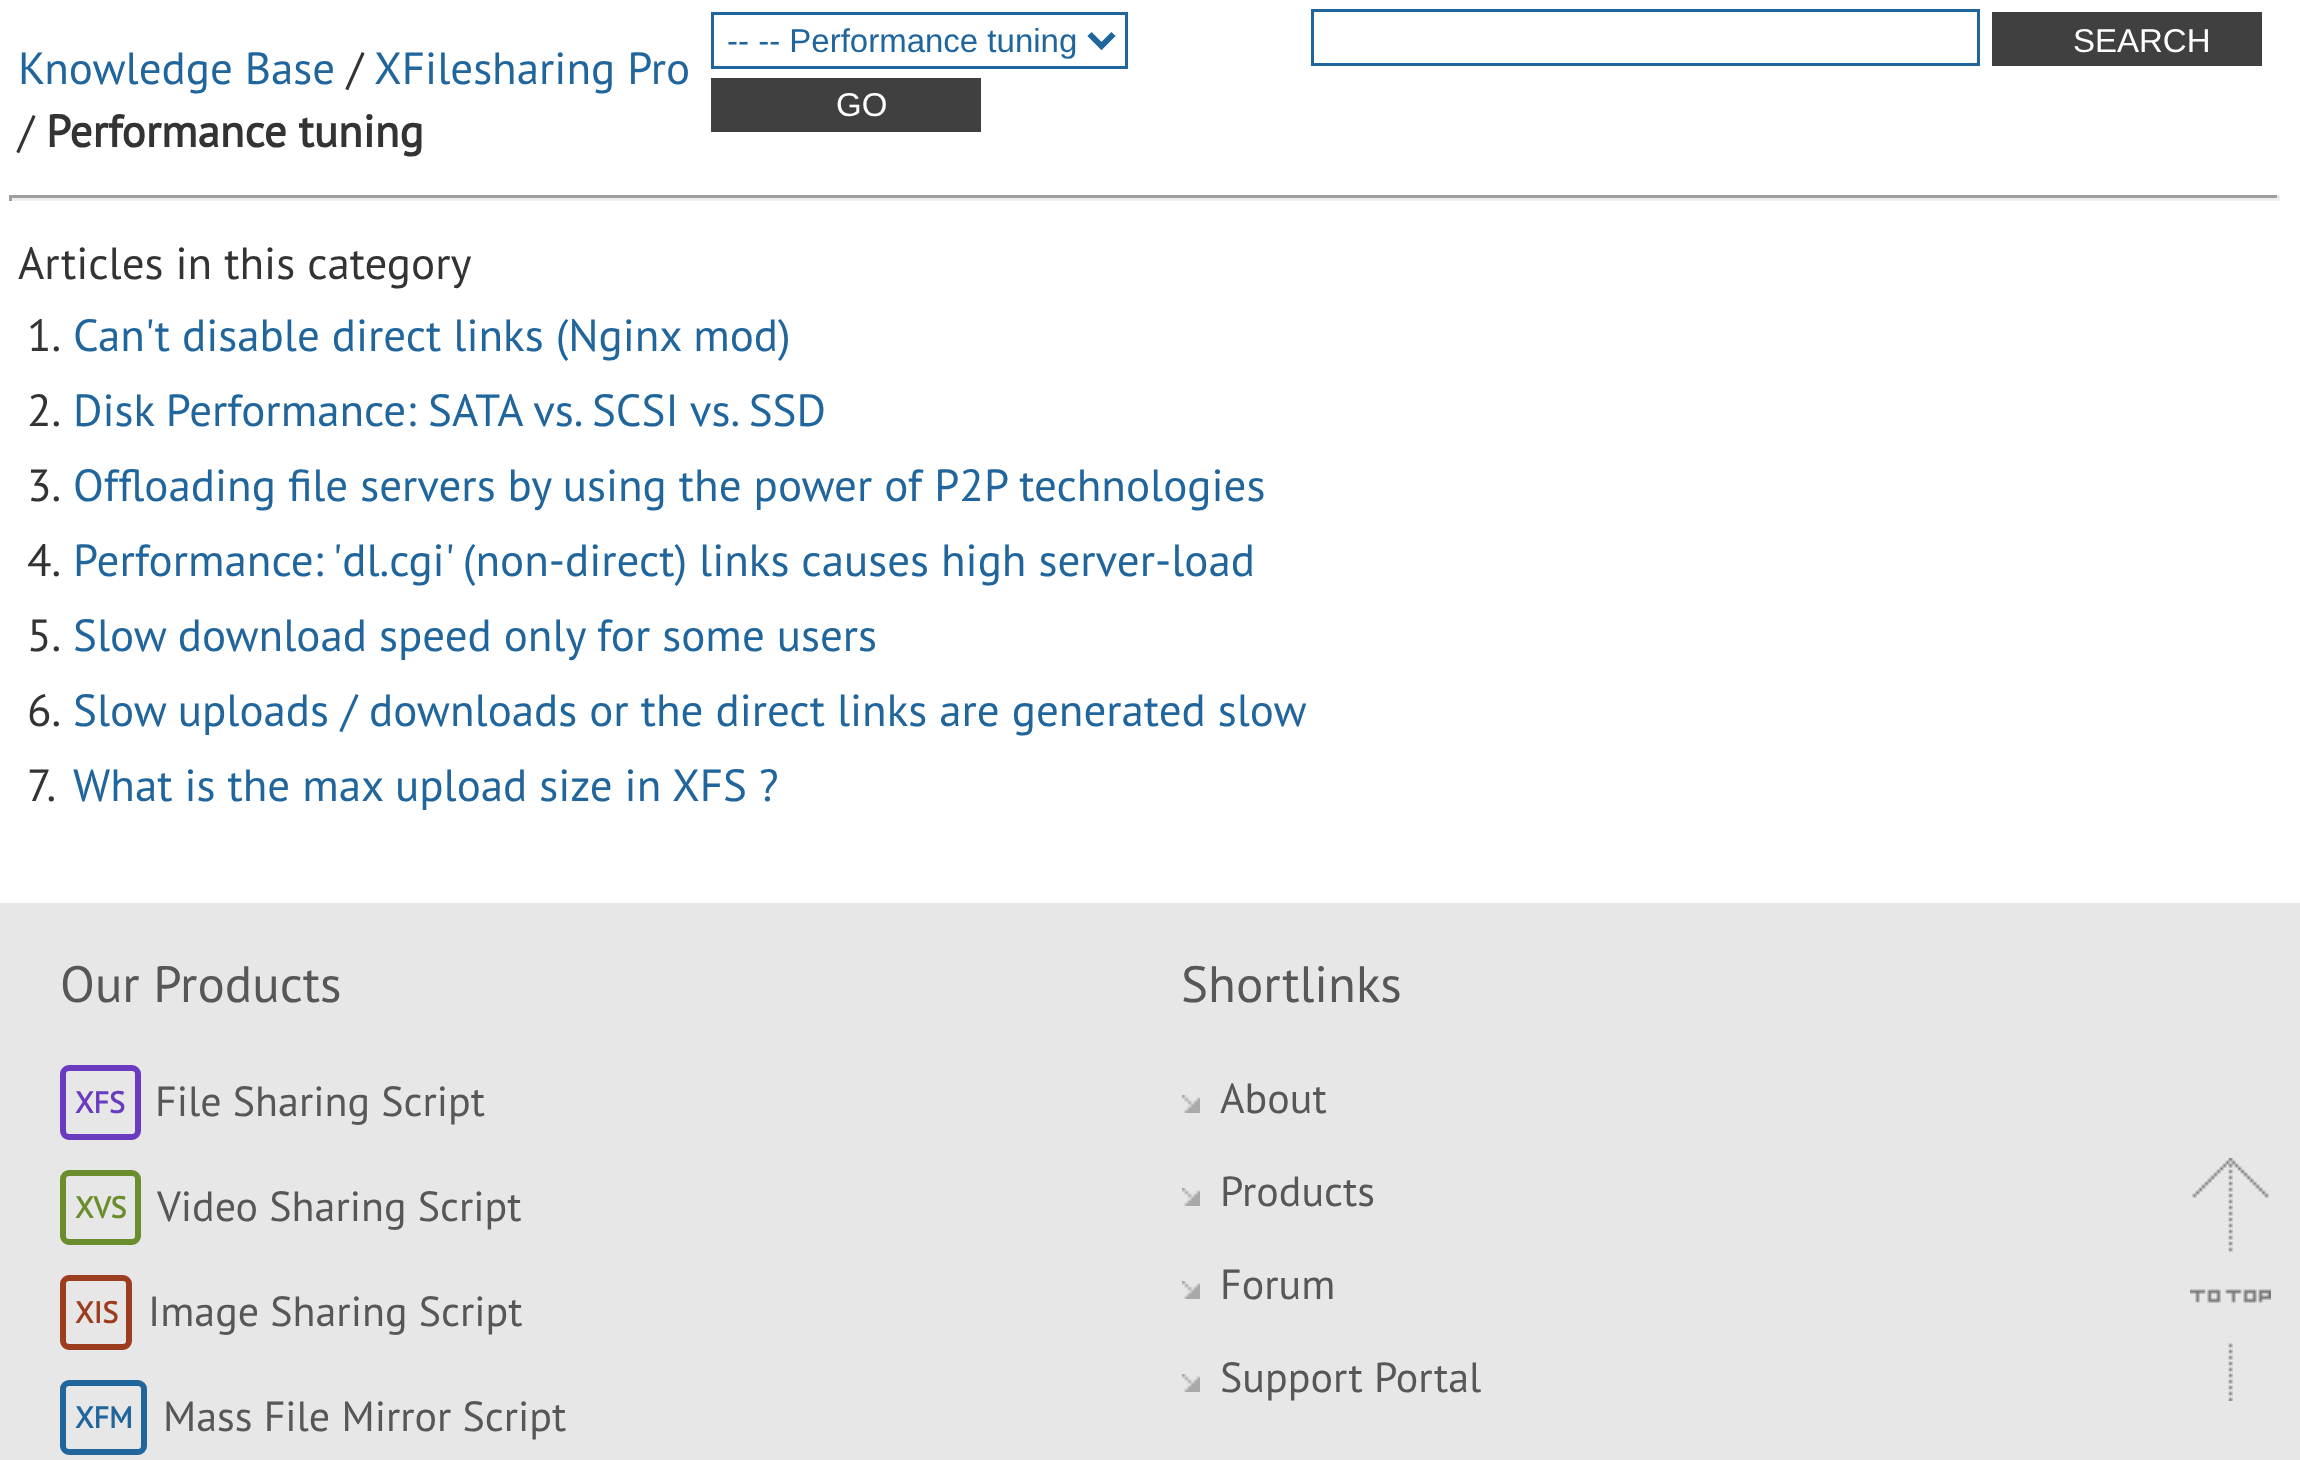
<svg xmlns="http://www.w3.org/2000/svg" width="2300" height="1460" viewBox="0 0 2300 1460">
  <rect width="100%" height="100%" fill="#fff"/>
  <path d="M712.5 13.5h414v54H712.5z" fill="none" stroke="#20659c" stroke-width="3"/>
  <path d="M1089.5 34L1101.5 46L1113.5 34" fill="none" stroke="#20659c" stroke-width="6"/>
  <path d="M711 78h270v54H711z" fill="#404040"/>
  <path d="M1312.5 10.5h666v54H1312.5z" fill="none" stroke="#20659c" stroke-width="3"/>
  <path d="M1992 12h270v54H1992z" fill="#404040"/>
  <path d="M9 195h2271v3H9z" fill="#9f9f9f"/>
  <path d="M2277 195h3v6H2277z" fill="#eee"/>
  <path d="M9 198h2271v3H9z" fill="#eee"/>
  <path d="M9 195h3v6H9z" fill="#9f9f9f"/>
  <path d="M0 903h2300v557H0z" fill="#e7e7e7"/>
  <rect x="63" y="1068" width="75" height="69" rx="6" fill="none" stroke="#6a3bc0" stroke-width="6"/>
  <rect x="63" y="1173" width="75" height="69" rx="6" fill="none" stroke="#6a8d2d" stroke-width="6"/>
  <rect x="63" y="1278" width="66" height="69" rx="6" fill="none" stroke="#9c3d20" stroke-width="6"/>
  <rect x="63" y="1383" width="81" height="69" rx="6" fill="none" stroke="#20659c" stroke-width="6"/>
  <image x="1182" y="1095" width="18" height="18" href="img/1.png"/>
  <image x="1182" y="1188" width="18" height="18" href="img/1.png"/>
  <image x="1182" y="1281" width="18" height="18" href="img/1.png"/>
  <image x="1182" y="1374" width="18" height="18" href="img/1.png"/>
  <image x="2190" y="1158" width="81" height="243" href="img/2.png"/>
  <text x="18" y="84" font-family="PT Sans" font-size="45" fill="#20659c">Knowledge Base</text>
  <text x="347" y="84" font-family="PT Sans" font-size="45" fill="#333">/</text>
  <text x="374" y="84" font-family="PT Sans" font-size="45" fill="#20659c">XFilesharing Pro</text>
  <text x="18" y="147" font-family="PT Sans" font-size="45" fill="#333">/</text>
  <text x="46" y="147" font-family="PT Sans" font-size="45" font-weight="bold" fill="#333">Performance tuning</text>
  <text x="727" y="52" font-family="Liberation Sans" font-size="33" fill="#20659c">-- -- Performance tuning</text>
  <g font-family="Liberation Sans" font-size="33" fill="#fff">
    <text x="836" y="116">GO</text>
    <text x="2073" y="52">SEARCH</text>
  </g>
  <g font-family="PT Sans" font-size="45" fill="#333">
    <text x="18" y="279">Articles in this category</text>
    <text x="27" y="351">1.</text>
  </g>
  <text x="73" y="351" font-family="PT Sans" font-size="45" fill="#20659c">Can't disable direct links (Nginx mod)</text>
  <text x="27" y="426" font-family="PT Sans" font-size="45" fill="#333">2.</text>
  <text x="73" y="426" font-family="PT Sans" font-size="45" fill="#20659c">Disk Performance: SATA vs. SCSI vs. SSD</text>
  <text x="27" y="501" font-family="PT Sans" font-size="45" fill="#333">3.</text>
  <text x="73" y="501" font-family="PT Sans" font-size="45" fill="#20659c">Offloading file servers by using the power of P2P technologies</text>
  <text x="27" y="576" font-family="PT Sans" font-size="45" fill="#333">4.</text>
  <text x="73" y="576" font-family="PT Sans" font-size="45" fill="#20659c">Performance: 'dl.cgi' (non-direct) links causes high server-load</text>
  <text x="27" y="651" font-family="PT Sans" font-size="45" fill="#333">5.</text>
  <text x="73" y="651" font-family="PT Sans" font-size="45" fill="#20659c">Slow download speed only for some users</text>
  <text x="27" y="726" font-family="PT Sans" font-size="45" fill="#333">6.</text>
  <text x="73" y="726" font-family="PT Sans" font-size="45" fill="#20659c">Slow uploads / downloads or the direct links are generated slow</text>
  <text x="27" y="801" font-family="PT Sans" font-size="45" fill="#333">7.</text>
  <text x="73" y="801" font-family="PT Sans" font-size="45" fill="#20659c">What is the max upload size in XFS ?</text>
  <text x="60" y="1002" font-family="PT Sans" font-size="51" fill="#575757">Our Products</text>
  <text x="75" y="1113" font-family="PT Sans" font-size="30" font-weight="bold" fill="#6a3bc0">XFS</text>
  <text x="155" y="1116" font-family="PT Sans" font-size="42" fill="#575757">File Sharing Script</text>
  <text x="75" y="1218" font-family="PT Sans" font-size="30" font-weight="bold" fill="#6a8d2d">XVS</text>
  <text x="157" y="1221" font-family="PT Sans" font-size="42" fill="#575757">Video Sharing Script</text>
  <text x="75" y="1323" font-family="PT Sans" font-size="30" font-weight="bold" fill="#9c3d20">XIS</text>
  <text x="148" y="1326" font-family="PT Sans" font-size="42" fill="#575757">Image Sharing Script</text>
  <text x="75" y="1428" font-family="PT Sans" font-size="30" font-weight="bold" fill="#20659c">XFM</text>
  <text x="163" y="1431" font-family="PT Sans" font-size="42" fill="#575757">Mass File Mirror Script</text>
  <text x="1181" y="1002" font-family="PT Sans" font-size="51" fill="#575757">Shortlinks</text>
  <g font-family="PT Sans" font-size="42" fill="#575757">
    <text x="1220" y="1113">About</text>
    <text x="1220" y="1206">Products</text>
    <text x="1220" y="1299">Forum</text>
    <text x="1220" y="1392">Support Portal</text>
  </g>
</svg>
